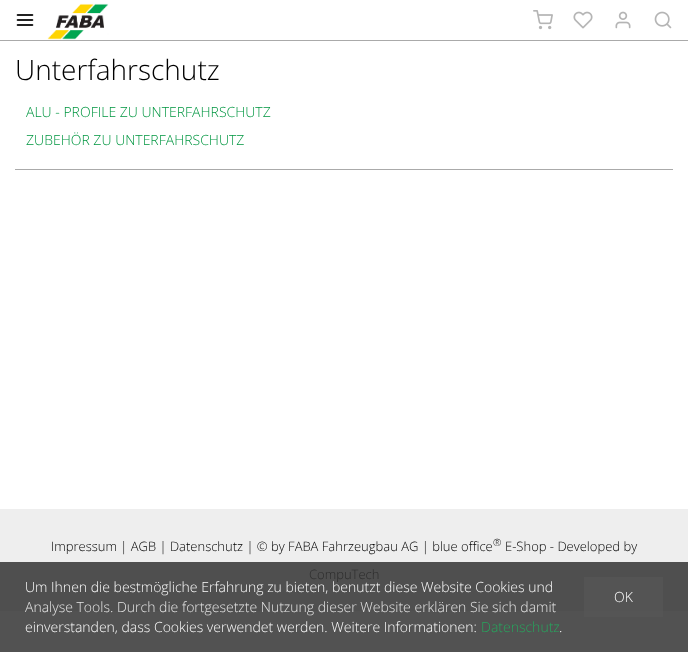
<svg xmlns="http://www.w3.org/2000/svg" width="688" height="652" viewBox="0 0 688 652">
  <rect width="100%" height="100%" fill="#fff"/>
  <path d="M0 611h688v41H0z" fill="#525252"/>
  <path d="M584 611h79v6H584z" fill="#555"/>
  <path d="M0 40h688v1H0z" fill="#aaa"/>
  <image x="16" y="14" width="18" height="12" href="img/1.png"/>
  <image x="47" y="3" width="62" height="37" href="img/2.png"/>
  <image x="533" y="10" width="20" height="20" href="img/3.png"/>
  <image x="573" y="11" width="20" height="18" href="img/4.png"/>
  <image x="615" y="11" width="16" height="18" href="img/5.png"/>
  <image x="654" y="11" width="18" height="18" href="img/6.png"/>
  <path d="M15 169h658v1H15z" fill="#aaa"/>
  <path d="M0 509h688v53H0z" fill="#eee"/>
  <path d="M0 562h688v49H0z" fill="#4f4f4f"/>
  <path d="M584 577h79v34H584z" fill="#545454"/>
  <text x="15" y="80" font-family="Open Sans" font-size="28" font-weight="300" fill="#000">Unterfahrschutz</text>
  <g font-family="Open Sans" font-size="14" font-weight="300" fill="#009640">
    <text x="26" y="117">ALU - PROFILE ZU UNTERFAHRSCHUTZ</text>
    <text x="26" y="145">ZUBEHÖR ZU UNTERFAHRSCHUTZ</text>
  </g>
  <text x="51" y="551" font-family="Open Sans" font-size="13" font-weight="300" fill="#000">Impressum | AGB | Datenschutz | © by FABA Fahrzeugbau AG | blue office</text>
  <text x="493" y="546" font-family="Open Sans" font-size="10" font-weight="300" fill="#000">®</text>
  <text x="505" y="551" font-family="Open Sans" font-size="13" font-weight="300" fill="#000">E-Shop - Developed by</text>
  <text x="309" y="579" font-family="Open Sans" font-size="13" font-weight="300" fill="#2b2b2b">CompuTech</text>
  <g font-family="Open Sans" font-size="14" font-weight="300" fill="#fcfcfc">
    <text x="25" y="592">Um Ihnen die bestmögliche Erfahrung zu bieten, benutzt diese Website Cookies und</text>
    <text x="614" y="602">OK</text>
  </g>
  <text x="25" y="612" font-family="Open Sans" font-size="14" font-weight="300" fill="#e5e5e5">Analyse Tools. Durch die fortgesetzte Nutzung dieser Website erklären Sie sich damit</text>
  <text x="25" y="632" font-family="Open Sans" font-size="14" font-weight="300" fill="#fcfcfc">einverstanden, dass Cookies verwendet werden. Weitere Informationen:</text>
  <text x="481" y="632" font-family="Open Sans" font-size="14" font-weight="300" fill="#26a65d">Datenschutz</text>
  <text x="559" y="632" font-family="Open Sans" font-size="14" font-weight="300" fill="#fcfcfc">.</text>
</svg>
